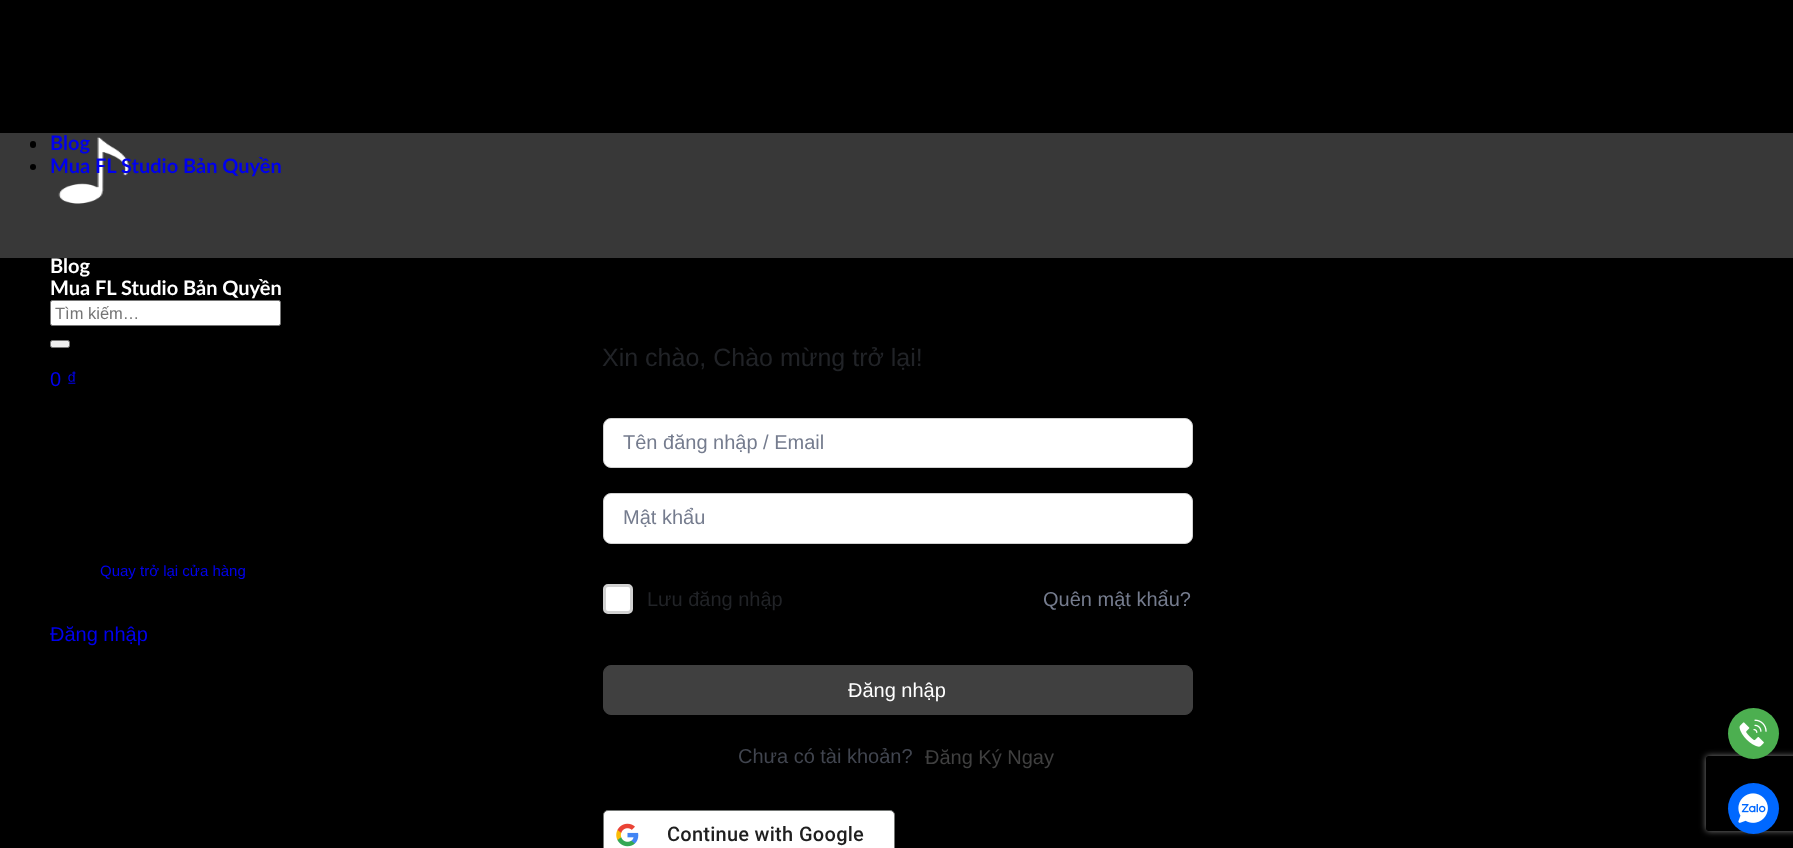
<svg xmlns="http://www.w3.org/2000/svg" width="1793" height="848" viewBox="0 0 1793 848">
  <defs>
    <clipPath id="clip1"><path d="M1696 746H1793V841H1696ZM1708.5 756H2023.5C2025 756 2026 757 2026 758.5V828.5C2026 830 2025 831 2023.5 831H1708.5C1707 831 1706 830 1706 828.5V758.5C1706 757 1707 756 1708.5 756Z" clip-rule="evenodd"/></clipPath>
    <clipPath id="clip2"><path d="M668 810h197v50H668z"/></clipPath>
  </defs>
  <rect width="100%" height="100%" fill="#000"/>
  <path d="M0 133h1793v125H0z" fill="#383838"/>
  <rect x="30" y="141" width="6" height="7" rx="3" fill="#000"/>
  <circle cx="33" cy="167" r="3" fill="#000"/>
  <image x="58" y="137" width="71" height="67" href="img/1.png"/>
  <rect x="50.5" y="300.5" width="230" height="25" rx="2" fill="#fff" stroke="#767676"/>
  <rect x="50.5" y="340.5" width="19" height="7" rx="2" fill="#efefef" stroke="#767676"/>
  <rect x="603.5" y="418.5" width="589" height="49" rx="7.5" fill="#fff" stroke="#d1d1d1"/>
  <rect x="603.5" y="493.5" width="589" height="50" rx="7.5" fill="#fff" stroke="#d1d1d1"/>
  <rect x="604.5" y="585.5" width="27" height="27" rx="3.5" fill="#fff" stroke="#d1d1d1" stroke-width="3"/>
  <rect x="603.5" y="665.5" width="589" height="49" rx="7.5" fill="#404040" stroke="#404040"/>
  <rect x="603.5" y="810.5" width="291" height="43" rx="4.5" fill="#fff" stroke="#747775"/>
  <image x="616" y="823" width="23" height="24" href="img/2.png"/>
  <g clip-path="url(#clip1)">
    <rect x="1706" y="756" width="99" height="75" rx="2.5" fill="#808080" filter="blur(3px)"/>
  </g>
  <circle cx="1753.5" cy="733.5" r="25.5" fill="#4caf50"/>
  <image x="1739" y="719" width="28" height="28" href="img/3.png"/>
  <circle cx="1753.5" cy="808.5" r="25.5" fill="#0068ff"/>
  <image x="1738" y="793" width="30" height="30" href="img/4.png"/>
  <g font-family="Lato" font-size="20" font-weight="bold" fill="#00e">
    <text x="50" y="150">Blog</text>
    <text x="50" y="173">Mua FL Studio Bản Quyền</text>
  </g>
  <g font-family="Lato" font-size="20" font-weight="bold" fill="#fff">
    <text x="50" y="273">Blog</text>
    <text x="50" y="295">Mua FL Studio Bản Quyền</text>
  </g>
  <text x="55" y="319" font-family="Liberation Sans" font-size="16.5" fill="#757575">Tìm kiếm…</text>
  <text x="50" y="386" font-family="Liberation Sans" font-size="20" fill="#00e">0 ₫</text>
  <text x="100" y="576" font-family="Liberation Sans" font-size="15" fill="#00e">Quay trở lại cửa hàng</text>
  <text x="50" y="641" font-family="Liberation Sans" font-size="20" fill="#00e">Đăng nhập</text>
  <text x="602" y="366" font-family="Liberation Sans" font-size="25" fill="#212327">Xin chào, Chào mừng trở lại!</text>
  <g font-family="Liberation Sans" font-size="20" fill="#757c8e">
    <text x="623" y="449">Tên đăng nhập / Email</text>
    <text x="623" y="524">Mật khẩu</text>
  </g>
  <text x="647" y="606" font-family="Liberation Sans" font-size="20" fill="#212327">Lưu đăng nhập</text>
  <text x="1043" y="606" font-family="Liberation Sans" font-size="20" fill="#757c8e">Quên mật khẩu?</text>
  <text x="848" y="697" font-family="Liberation Sans" font-size="20" fill="#fff">Đăng nhập</text>
  <text x="738" y="763" font-family="Liberation Sans" font-size="20" fill="#41454f">Chưa có tài khoản?</text>
  <text x="925" y="764" font-family="Liberation Sans" font-size="20" fill="#404040">Đăng Ký Ngay</text>
  <g clip-path="url(#clip2)">
    <text x="667" y="841" font-family="Roboto" font-size="20" font-weight="500" letter-spacing="0.25" fill="#1f1f1f">Continue with</text>
  </g>
  <text x="799" y="841" font-family="Roboto" font-size="20" font-weight="500" letter-spacing="0.25" fill="#1f1f1f">Google</text>
</svg>
